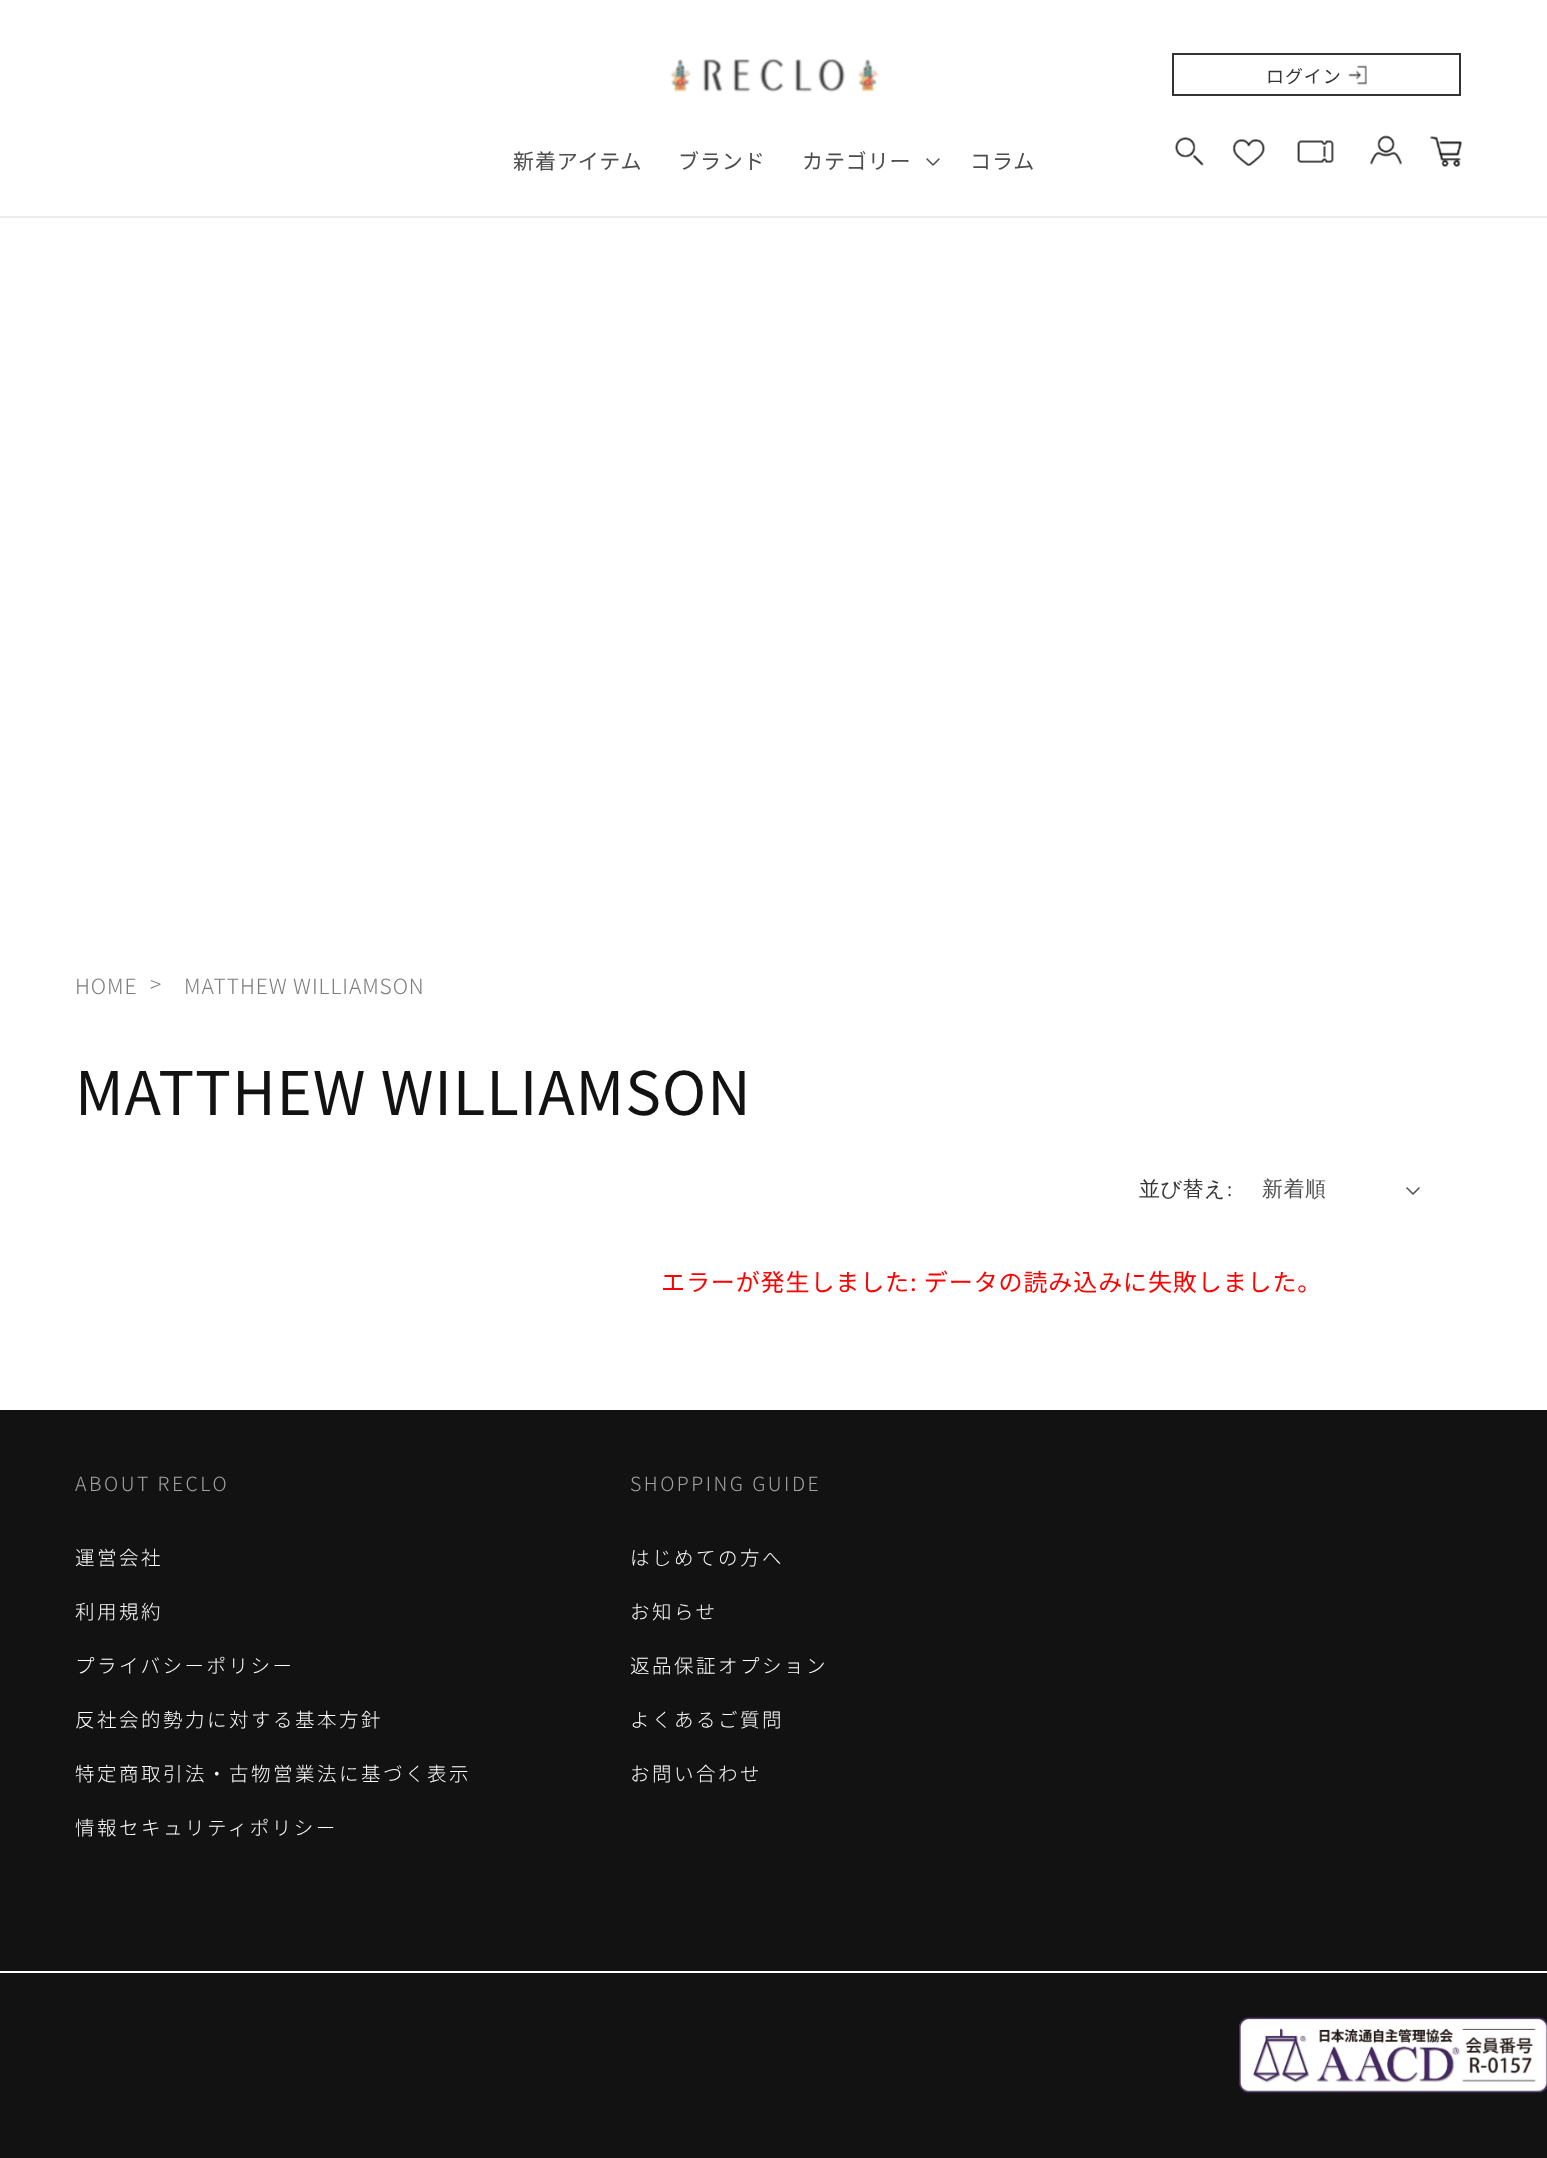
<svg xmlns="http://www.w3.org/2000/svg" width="1547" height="2158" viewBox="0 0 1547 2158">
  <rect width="100%" height="100%" fill="#fff"/>
  <path d="M0 216h1547v2H0z" fill="#ececec"/>
  <image x="670" y="58" width="209" height="35" href="img/1.png"/>
  <path d="M1173 54h287v41H1173z" fill="none" stroke="#333" stroke-width="2"/>
  <image x="1348" y="65" width="19" height="20" href="img/2.png"/>
  <image x="926" y="158" width="14" height="8" href="img/3.png"/>
  <image x="1175" y="137" width="29" height="29" href="img/4.png"/>
  <image x="1232" y="139" width="33" height="28" href="img/5.png"/>
  <image x="1297" y="140" width="37" height="23" href="img/6.png"/>
  <image x="1370" y="135" width="32" height="30" href="img/7.png"/>
  <image x="1430" y="136" width="32" height="31" href="img/8.png"/>
  <image x="1406" y="1187" width="14" height="8" href="img/3.png"/>
  <path d="M0 1410h1547v748H0z" fill="#121212"/>
  <path d="M0 1971h1547v2H0z" fill="#fff"/>
  <image x="1239" y="2017" width="308" height="76" href="img/9.png"/>
  <text x="1266" y="83" font-family="Noto Sans JP" font-size="18" letter-spacing="0.9" fill="#363636">ログイン</text>
  <g font-family="Noto Sans JP" font-size="21" letter-spacing="0.9" fill="#4d4d4d">
    <text x="513" y="169">新着アイテム</text>
    <text x="678" y="169">ブランド</text>
    <text x="802" y="169">カテゴリー</text>
    <text x="970" y="169">コラム</text>
  </g>
  <g font-family="Noto Sans JP" font-size="21" font-weight="300" letter-spacing="0.9" fill="#7c7c7c">
    <text x="75" y="994">HOME</text>
    <text x="150" y="992">&gt;</text>
    <text x="184" y="994">MATTHEW WILLIAMSON</text>
  </g>
  <text x="75" y="1115" font-family="Noto Sans JP" font-size="60" letter-spacing="0.9" fill="#121212">MATTHEW WILLIAMSON</text>
  <text x="1139" y="1196" font-family="WenQuanYi Zen Hei" font-size="21" font-weight="500" letter-spacing="0.5" fill="#363636">並び替え</text>
  <text x="1227" y="1196" font-family="Assistant" font-size="21" letter-spacing="0.5" fill="#363636">:</text>
  <text x="1262" y="1196" font-family="WenQuanYi Zen Hei" font-size="21" font-weight="500" letter-spacing="0.5" fill="#4d4d4d">新着順</text>
  <text x="661" y="1291" font-family="Noto Sans JP" font-size="24" letter-spacing="0.9" fill="#f00">エラーが発生しました: データの読み込みに失敗しました。</text>
  <text x="75" y="1491" font-family="Noto Sans JP" font-size="19.5" font-weight="300" letter-spacing="2.5" fill="#a3a3a3">ABOUT RECLO</text>
  <g font-family="Noto Sans JP" font-size="19.5" font-weight="300" letter-spacing="2.5" fill="#fff">
    <text x="75" y="1565">運営会社</text>
    <text x="75" y="1619">利用規約</text>
    <text x="75" y="1673">プライバシーポリシー</text>
    <text x="75" y="1727">反社会的勢力に対する基本方針</text>
    <text x="75" y="1781">特定商取引法・古物営業法に基づく表示</text>
    <text x="75" y="1835">情報セキュリティポリシー</text>
  </g>
  <text x="630" y="1491" font-family="Noto Sans JP" font-size="19.5" font-weight="300" letter-spacing="2.5" fill="#a3a3a3">SHOPPING GUIDE</text>
  <g font-family="Noto Sans JP" font-size="19.5" font-weight="300" letter-spacing="2.5" fill="#fff">
    <text x="630" y="1565">はじめての方へ</text>
    <text x="630" y="1619">お知らせ</text>
    <text x="630" y="1673">返品保証オプション</text>
    <text x="630" y="1727">よくあるご質問</text>
    <text x="630" y="1781">お問い合わせ</text>
  </g>
</svg>
